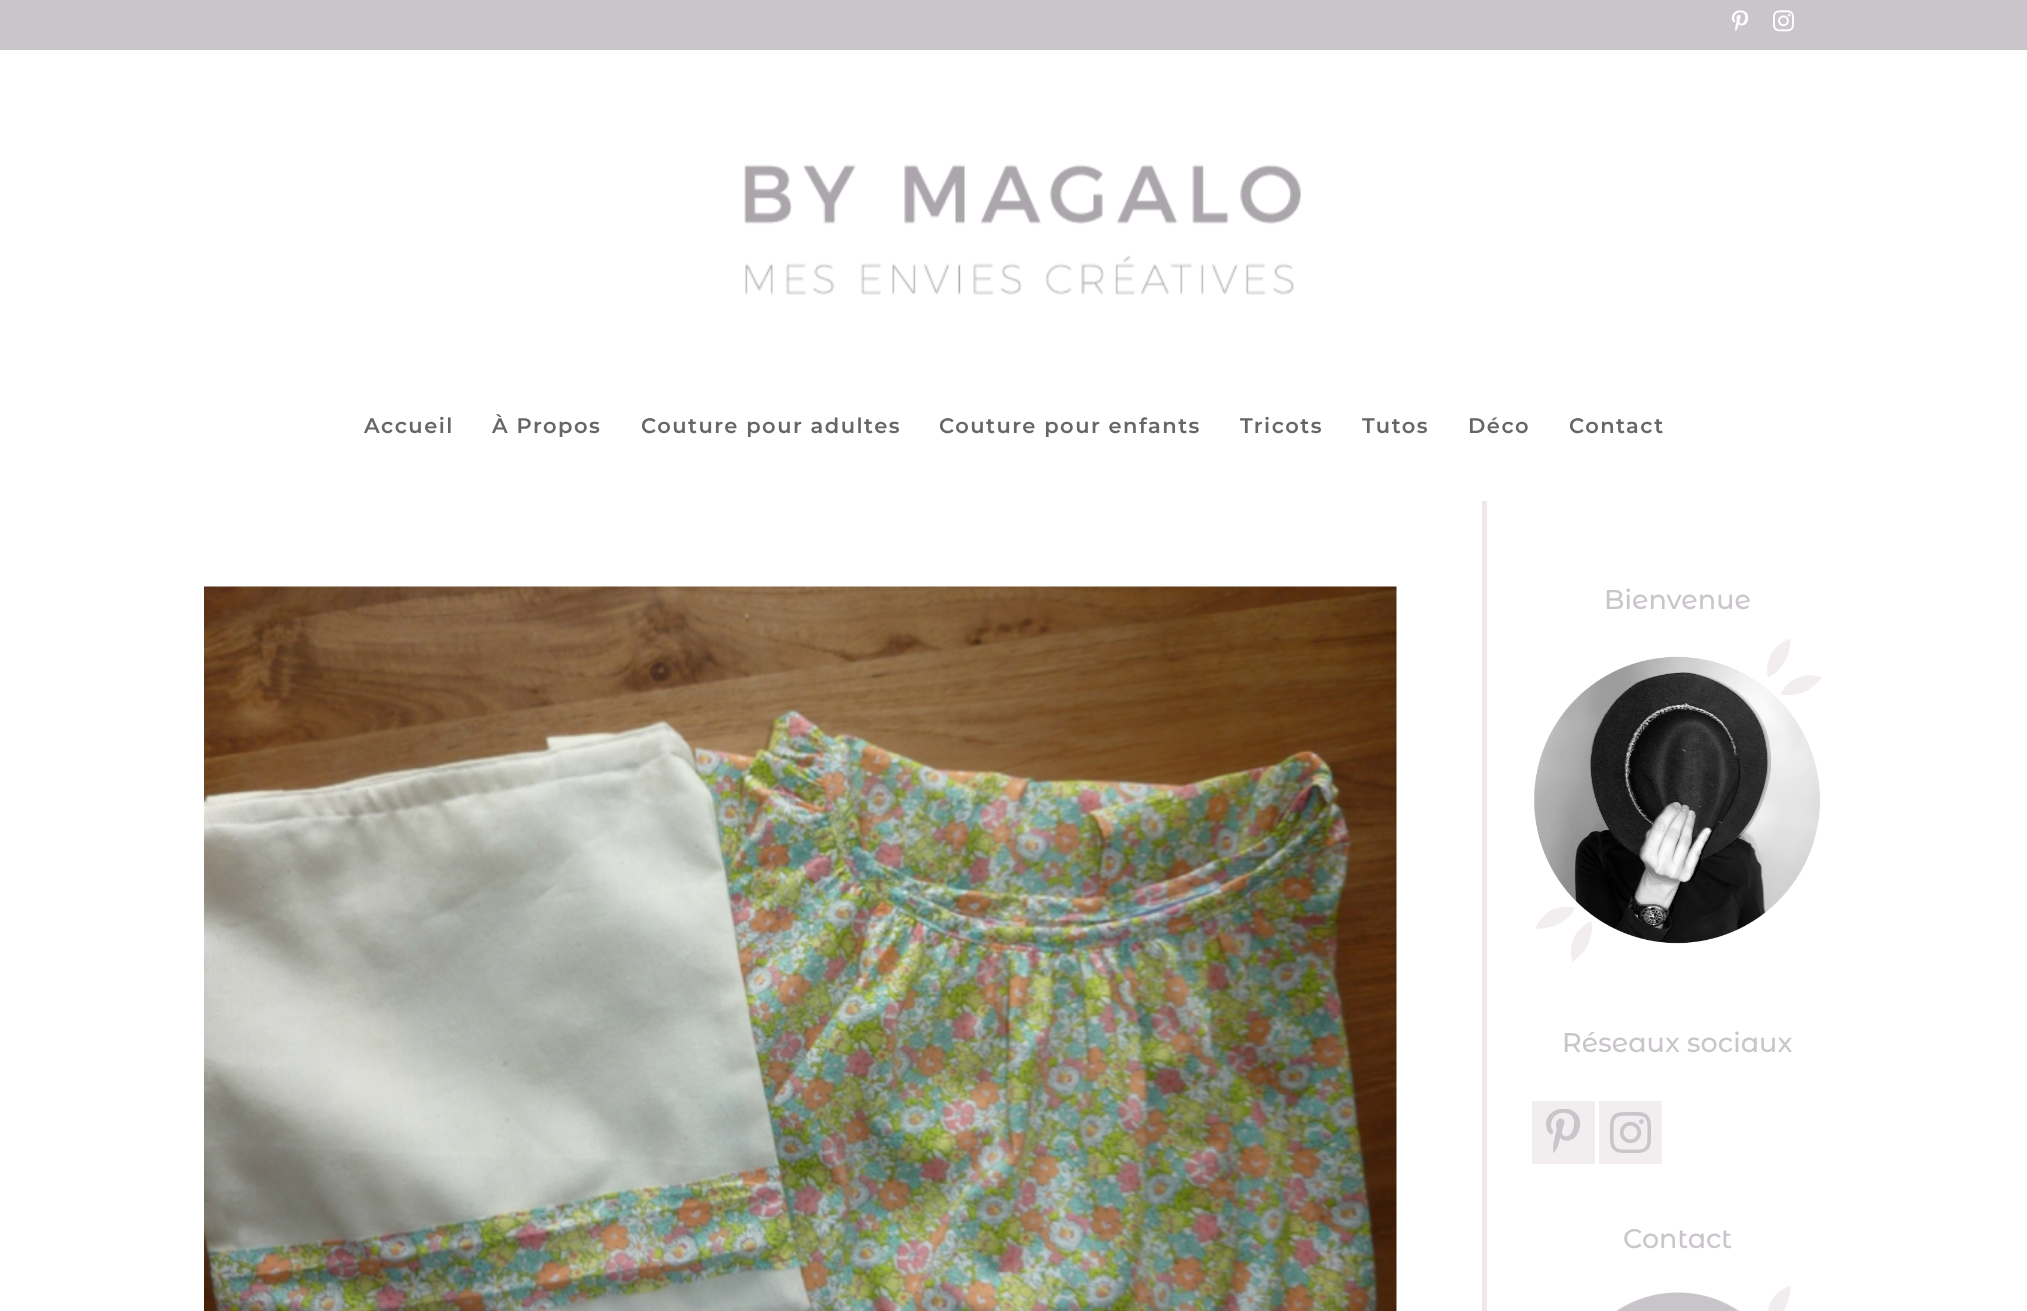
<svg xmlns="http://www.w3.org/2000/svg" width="2027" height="1311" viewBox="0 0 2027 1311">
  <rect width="100%" height="100%" fill="#cac5cb"/>
  <image x="1731" y="10" width="18" height="21" href="img/1.png"/>
  <image x="1773" y="10" width="21" height="22" href="img/2.png"/>
  <path d="M0 501h2027v810H0z" fill="#fff"/>
  <path d="M1482 500h5v811H1482z" fill="#eee8eb"/>
  <path d="M0 50h2027v451H0z" fill="#fff"/>
  <image x="744" y="164" width="557" height="131" href="img/3.png"/>
  <image x="204" y="586" width="1193" height="725" href="img/4.png"/>
  <image x="1534" y="639" width="288" height="323" href="img/5.png"/>
  <path d="M1532 1101h63v63H1532z" fill="#f2eeef"/>
  <image x="1546" y="1109" width="35" height="44" href="img/6.png"/>
  <path d="M1599 1101h63v63H1599z" fill="#f2eeef"/>
  <image x="1610" y="1112" width="41" height="41" href="img/7.png"/>
  <image x="1615" y="1286" width="176" height="25" href="img/8.png"/>
  <g font-family="Montserrat" font-size="21" font-weight="600" letter-spacing="1.5" fill="#666">
    <text x="364" y="433">Accueil</text>
    <text x="492" y="433">À Propos</text>
    <text x="641" y="433">Couture pour adultes</text>
    <text x="939" y="433">Couture pour enfants</text>
    <text x="1240" y="433">Tricots</text>
    <text x="1362" y="433">Tutos</text>
    <text x="1468" y="433">Déco</text>
    <text x="1569" y="433">Contact</text>
  </g>
  <g font-family="Montserrat Alternates" font-size="27" font-weight="500" fill="#cac5cb">
    <text x="1604" y="609">Bienvenue</text>
    <text x="1562" y="1052">Réseaux sociaux</text>
    <text x="1623" y="1248">Contact</text>
  </g>
</svg>
